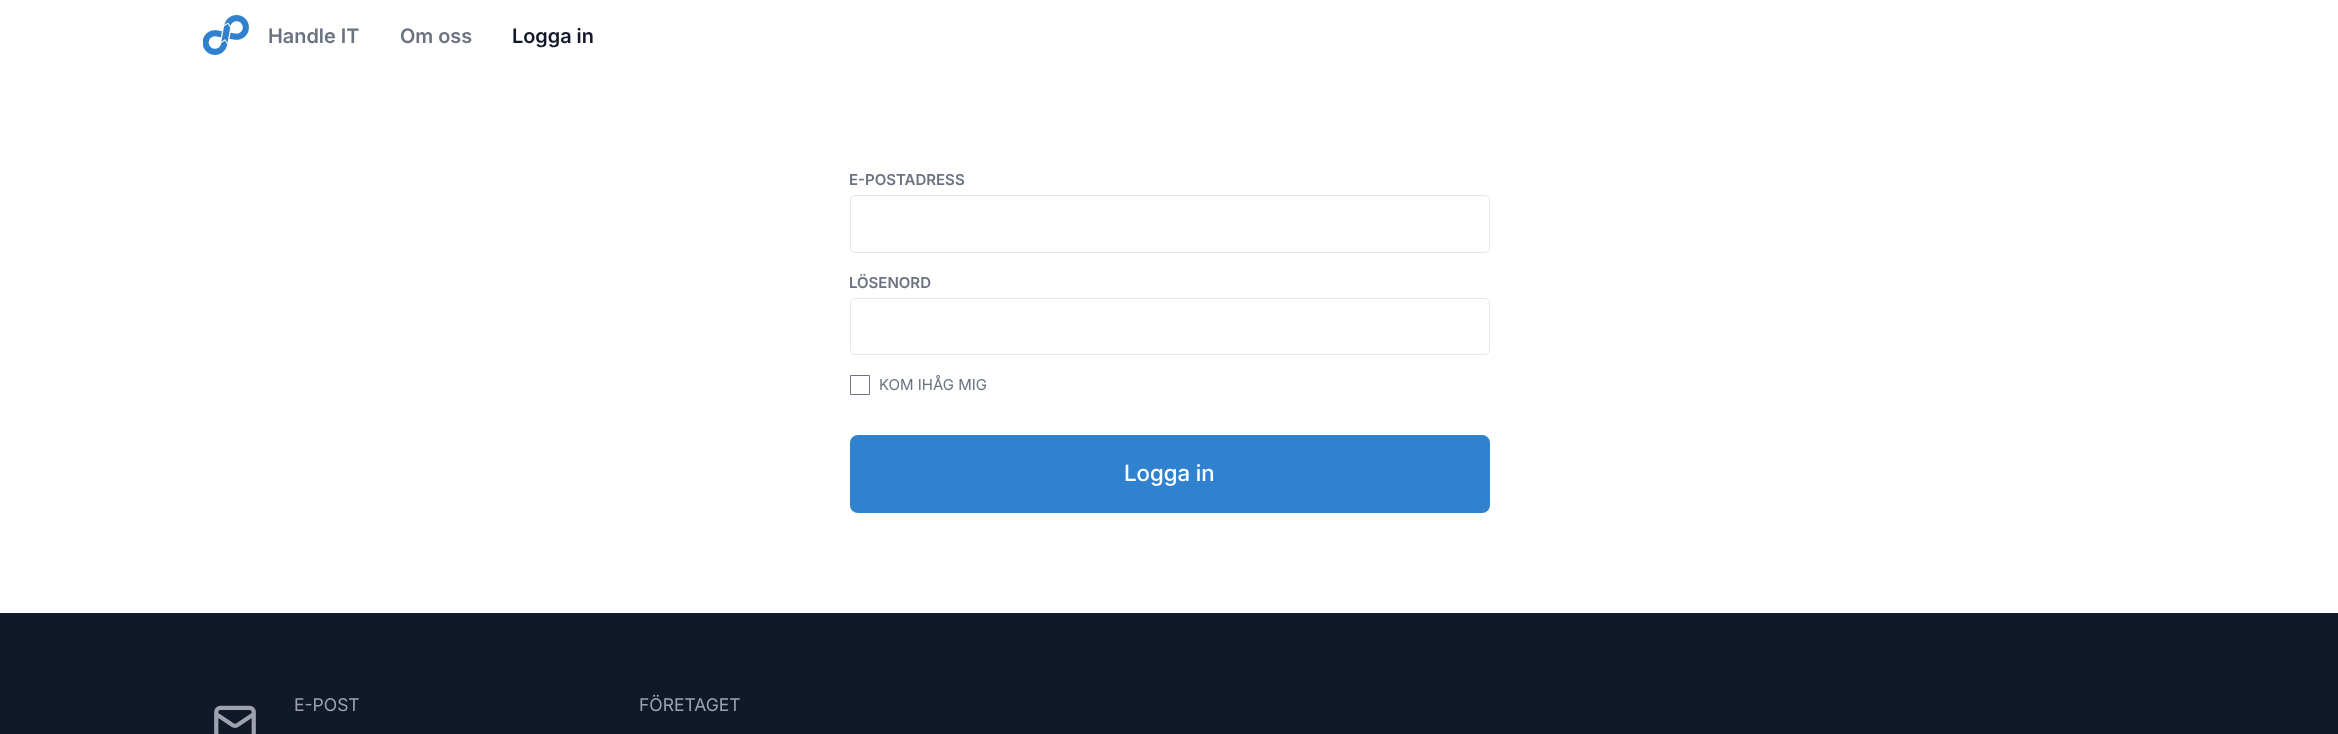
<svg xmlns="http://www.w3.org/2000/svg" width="2338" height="734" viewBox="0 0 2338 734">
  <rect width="100%" height="100%" fill="#fff"/>
  <image x="203" y="15" width="46" height="40" href="img/1.png"/>
  <rect x="850.5" y="195.5" width="639" height="57" rx="4.5" fill="none" stroke="#e5e7eb"/>
  <rect x="850.5" y="298.5" width="639" height="56" rx="4.5" fill="none" stroke="#e5e7eb"/>
  <path d="M850.5 375.5h19v19H850.5z" fill="none" stroke="#6b7280"/>
  <rect x="850" y="435" width="640" height="78" rx="8" fill="#3182ce"/>
  <path d="M0 613h2338v121H0z" fill="#111827"/>
  <image x="214" y="705" width="42" height="29" href="img/2.png"/>
  <g font-family="Inter" font-size="20" font-weight="600" fill="#6b7280">
    <text x="268" y="43">Handle IT</text>
    <text x="400" y="43">Om oss</text>
  </g>
  <text x="512" y="43" font-family="Inter" font-size="20" font-weight="600" fill="#111827">Logga in</text>
  <g font-family="'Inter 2'" font-size="15" font-weight="600" fill="#6b7280">
    <text x="849" y="185">E-POSTADRESS</text>
    <text x="849" y="288">LÖSENORD</text>
  </g>
  <text x="879" y="390" font-family="Inter" font-size="15" fill="#6b7280">KOM IHÅG MIG</text>
  <text x="1124" y="481" font-family="Inter" font-size="22.5" font-weight="500" fill="#fff">Logga in</text>
  <g font-family="Inter" font-size="17.5" fill="#9ca3af">
    <text x="294" y="711">E-POST</text>
    <text x="639" y="711">FÖRETAGET</text>
  </g>
</svg>
